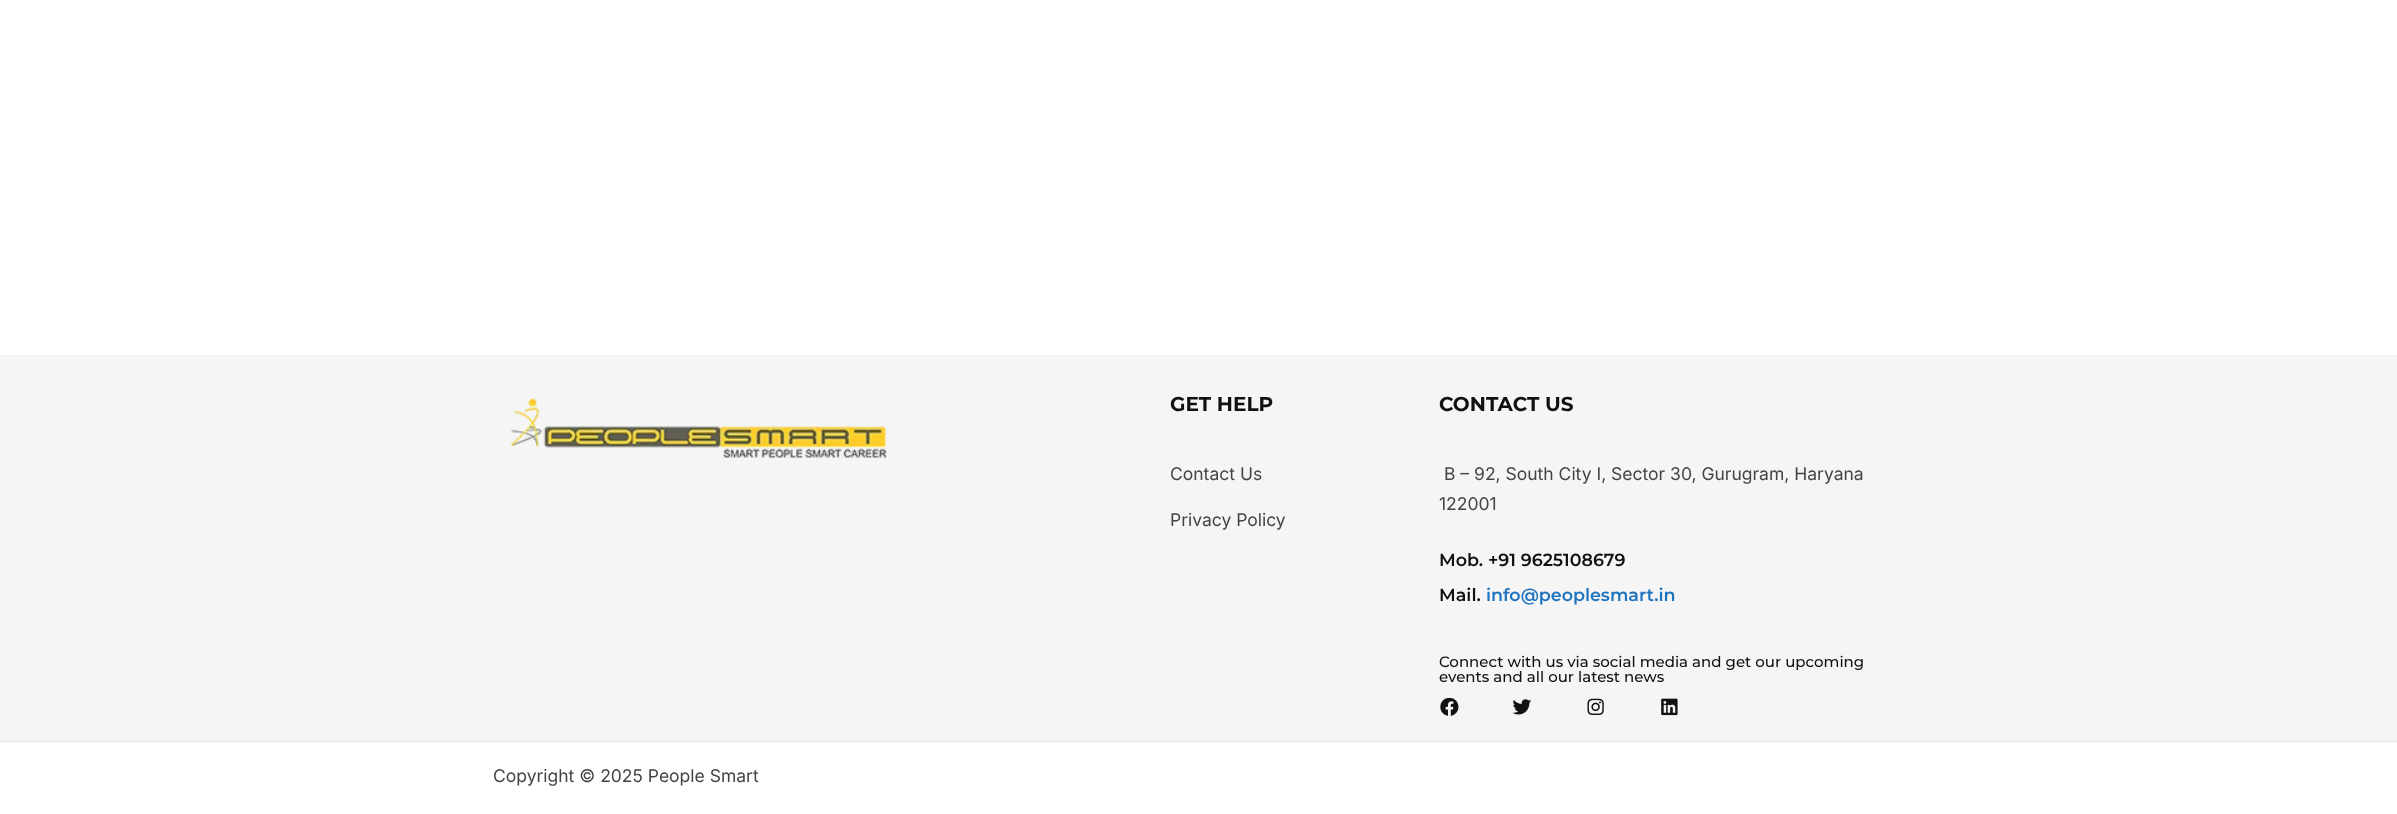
<svg xmlns="http://www.w3.org/2000/svg" width="2397" height="814" viewBox="0 0 2397 814">
  <rect width="100%" height="100%" fill="#fff"/>
  <path d="M0 355h2397v386H0z" fill="#f5f5f5"/>
  <image x="511" y="398" width="376" height="60" href="img/1.png"/>
  <image x="1440" y="698" width="19" height="18" href="img/2.png"/>
  <image x="1513" y="699" width="18" height="16" href="img/3.png"/>
  <image x="1587" y="698" width="17" height="17" href="img/4.png"/>
  <image x="1661" y="698" width="17" height="18" href="img/5.png"/>
  <path d="M0 741h2397v1H0z" fill="#e6e6e6"/>
  <text x="1170" y="411" font-family="Montserrat" font-size="20" font-weight="bold" fill="#111">GET HELP</text>
  <g font-family="Inter" font-size="17.5" fill="#444">
    <text x="1170" y="480">Contact Us</text>
    <text x="1170" y="526">Privacy Policy</text>
  </g>
  <text x="1439" y="411" font-family="Montserrat" font-size="20" font-weight="bold" fill="#111">CONTACT US</text>
  <g font-family="Inter" font-size="17.5" fill="#444">
    <text x="1444" y="480">B – 92, South City I, Sector 30, Gurugram, Haryana</text>
    <text x="1439" y="510">122001</text>
  </g>
  <g font-family="Montserrat" font-size="17.5" font-weight="600" fill="#111">
    <text x="1439" y="566">Mob. +91 9625108679</text>
    <text x="1439" y="601">Mail.</text>
  </g>
  <text x="1486" y="601" font-family="Montserrat" font-size="17.5" font-weight="600" fill="#1e73be">info@peoplesmart.in</text>
  <g font-family="Montserrat" font-size="15" font-weight="500" fill="#111">
    <text x="1439" y="667">Connect with us via social media and get our upcoming</text>
    <text x="1439" y="682">events and all our latest news</text>
  </g>
  <text x="493" y="782" font-family="Inter" font-size="17.5" fill="#444">Copyright © 2025 People Smart</text>
</svg>
